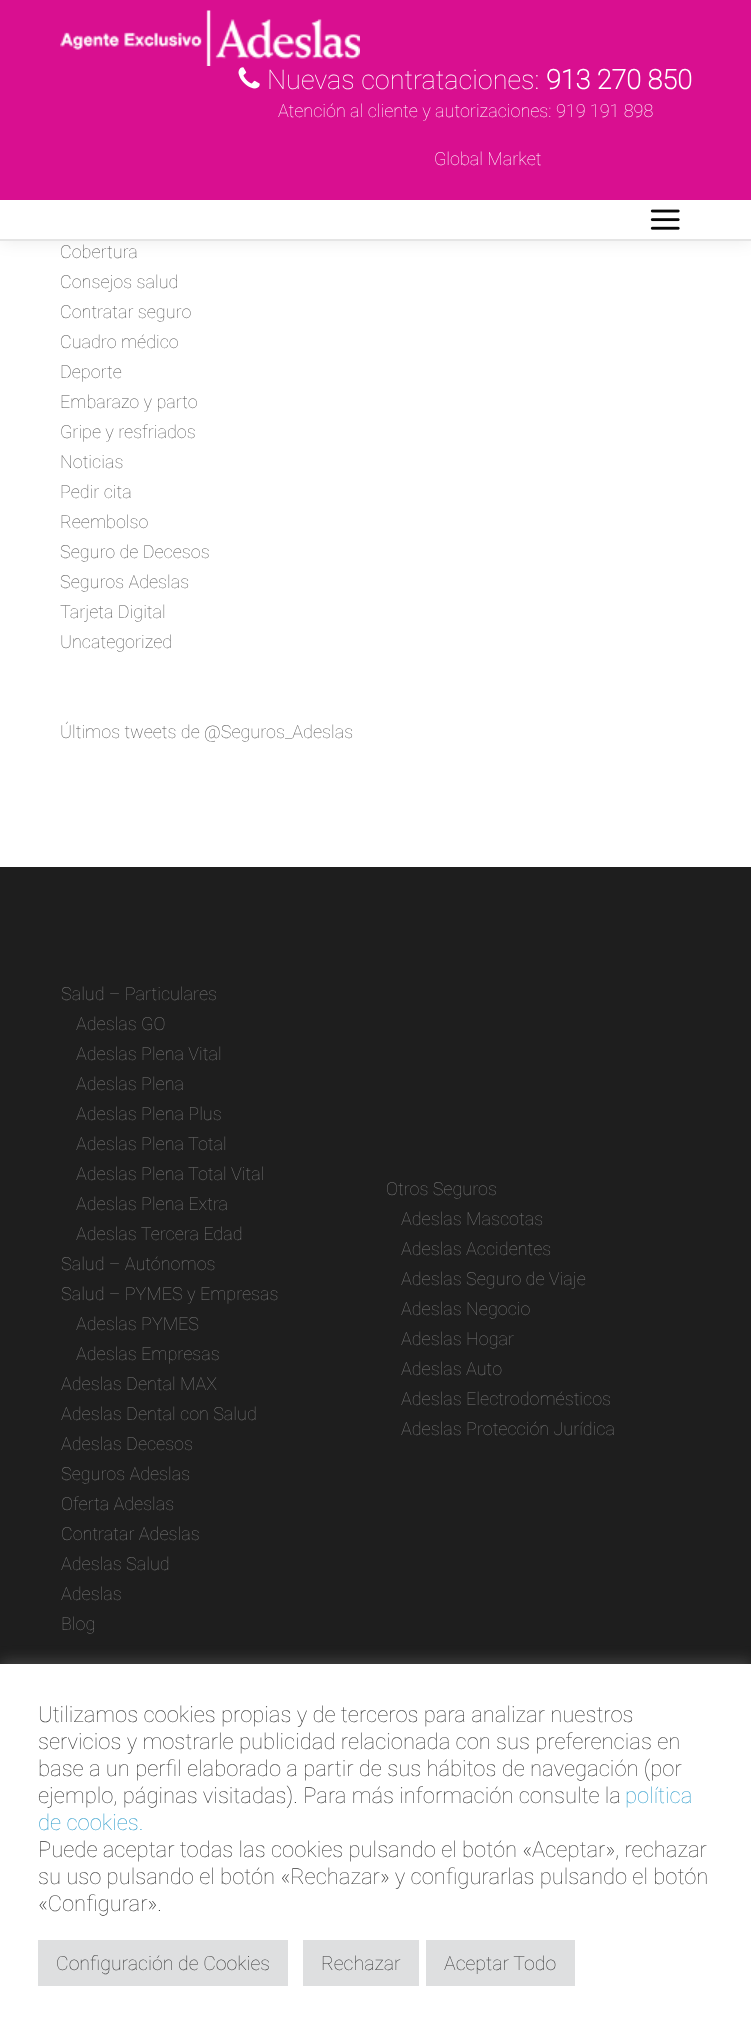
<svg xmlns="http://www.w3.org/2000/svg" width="751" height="2031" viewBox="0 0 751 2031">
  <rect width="100%" height="100%" fill="#fff"/>
  <path d="M0 0h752v240H0z" fill="#00000017" filter="blur(9px)"/>
  <path d="M0 200h751v39H0z" fill="#fff"/>
  <path d="M0 239h751v2H0z" fill="#e5e5e5"/>
  <path d="M0 0h751v200H0z" fill="#d90f90"/>
  <image x="60" y="10" width="300" height="56" href="img/1.png"/>
  <image x="238" y="67" width="22" height="22" href="img/2.png"/>
  <image x="650" y="209" width="30" height="21" href="img/3.png"/>
  <path d="M0 867h751v797H0z" fill="#1e1e1e"/>
  <path d="M0 1662h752v368H0z" fill="#acabab4d" filter="blur(7.5px)"/>
  <path d="M0 1664h751v367H0z" fill="#fff"/>
  <path d="M38 1940h250v46H38z" fill="#dedfe0"/>
  <path d="M303 1940h116v46H303z" fill="#dedfe0"/>
  <path d="M426 1940h149v46H426z" fill="#dedfe0"/>
  <text x="267" y="89" font-family="Roboto" font-size="27" font-weight="100" fill="#fff">Nuevas contrataciones:</text>
  <text x="546" y="89" font-family="Roboto" font-size="27" font-weight="bold" fill="#fff">913 270 850</text>
  <g font-family="Roboto" font-size="18" font-weight="100" fill="#fff">
    <text x="278" y="117">Atención al cliente y autorizaciones:</text>
    <text x="556" y="117">919 191 898</text>
    <text x="434" y="165">Global Market</text>
  </g>
  <g font-family="Roboto" font-size="18" font-weight="100" fill="#535353">
    <text x="60" y="258">Cobertura</text>
    <text x="60" y="288">Consejos salud</text>
    <text x="60" y="318">Contratar seguro</text>
    <text x="60" y="348">Cuadro médico</text>
    <text x="60" y="378">Deporte</text>
    <text x="60" y="408">Embarazo y parto</text>
    <text x="60" y="438">Gripe y resfriados</text>
    <text x="60" y="468">Noticias</text>
    <text x="60" y="498">Pedir cita</text>
    <text x="60" y="528">Reembolso</text>
    <text x="60" y="558">Seguro de Decesos</text>
    <text x="60" y="588">Seguros Adeslas</text>
    <text x="60" y="618">Tarjeta Digital</text>
    <text x="60" y="648">Uncategorized</text>
    <text x="60" y="738">Últimos tweets de @Seguros_Adeslas</text>
  </g>
  <g font-family="Roboto" font-size="18" font-weight="100" fill="#777">
    <text x="61" y="1000">Salud – Particulares</text>
    <text x="76" y="1030">Adeslas GO</text>
    <text x="76" y="1060">Adeslas Plena Vital</text>
    <text x="76" y="1090">Adeslas Plena</text>
    <text x="76" y="1120">Adeslas Plena Plus</text>
    <text x="76" y="1150">Adeslas Plena Total</text>
    <text x="76" y="1180">Adeslas Plena Total Vital</text>
    <text x="76" y="1210">Adeslas Plena Extra</text>
    <text x="76" y="1240">Adeslas Tercera Edad</text>
    <text x="61" y="1270">Salud – Autónomos</text>
    <text x="61" y="1300">Salud – PYMES y Empresas</text>
    <text x="76" y="1330">Adeslas PYMES</text>
    <text x="76" y="1360">Adeslas Empresas</text>
    <text x="61" y="1390">Adeslas Dental MAX</text>
    <text x="61" y="1420">Adeslas Dental con Salud</text>
    <text x="61" y="1450">Adeslas Decesos</text>
    <text x="61" y="1480">Seguros Adeslas</text>
    <text x="61" y="1510">Oferta Adeslas</text>
    <text x="61" y="1540">Contratar Adeslas</text>
    <text x="61" y="1570">Adeslas Salud</text>
    <text x="61" y="1600">Adeslas</text>
    <text x="61" y="1630">Blog</text>
    <text x="386" y="1195">Otros Seguros</text>
    <text x="401" y="1225">Adeslas Mascotas</text>
    <text x="401" y="1255">Adeslas Accidentes</text>
    <text x="401" y="1285">Adeslas Seguro de Viaje</text>
    <text x="401" y="1315">Adeslas Negocio</text>
    <text x="401" y="1345">Adeslas Hogar</text>
    <text x="401" y="1375">Adeslas Auto</text>
    <text x="401" y="1405">Adeslas Electrodomésticos</text>
    <text x="401" y="1435">Adeslas Protección Jurídica</text>
  </g>
  <g font-family="Roboto" font-size="22" font-weight="100" fill="#333">
    <text x="38" y="1722">Utilizamos cookies propias y de terceros para analizar nuestros</text>
    <text x="38" y="1749">servicios y mostrarle publicidad relacionada con sus preferencias en</text>
    <text x="38" y="1776">base a un perfil elaborado a partir de sus hábitos de navegación (por</text>
    <text x="38" y="1803">ejemplo, páginas visitadas). Para más información consulte la</text>
  </g>
  <g font-family="Roboto" font-size="22" font-weight="100" fill="#329ecc">
    <text x="625" y="1803">política</text>
    <text x="38" y="1830">de cookies.</text>
  </g>
  <g font-family="Roboto" font-size="22" font-weight="100" fill="#333">
    <text x="38" y="1857">Puede aceptar todas las cookies pulsando el botón «Aceptar», rechazar</text>
    <text x="38" y="1884">su uso pulsando el botón «Rechazar» y configurarlas pulsando el botón</text>
    <text x="38" y="1911">«Configurar».</text>
  </g>
  <g font-family="Roboto" font-size="19.5" font-weight="100" fill="#333">
    <text x="56" y="1970">Configuración de Cookies</text>
    <text x="321" y="1970">Rechazar</text>
    <text x="444" y="1970">Aceptar Todo</text>
  </g>
</svg>
